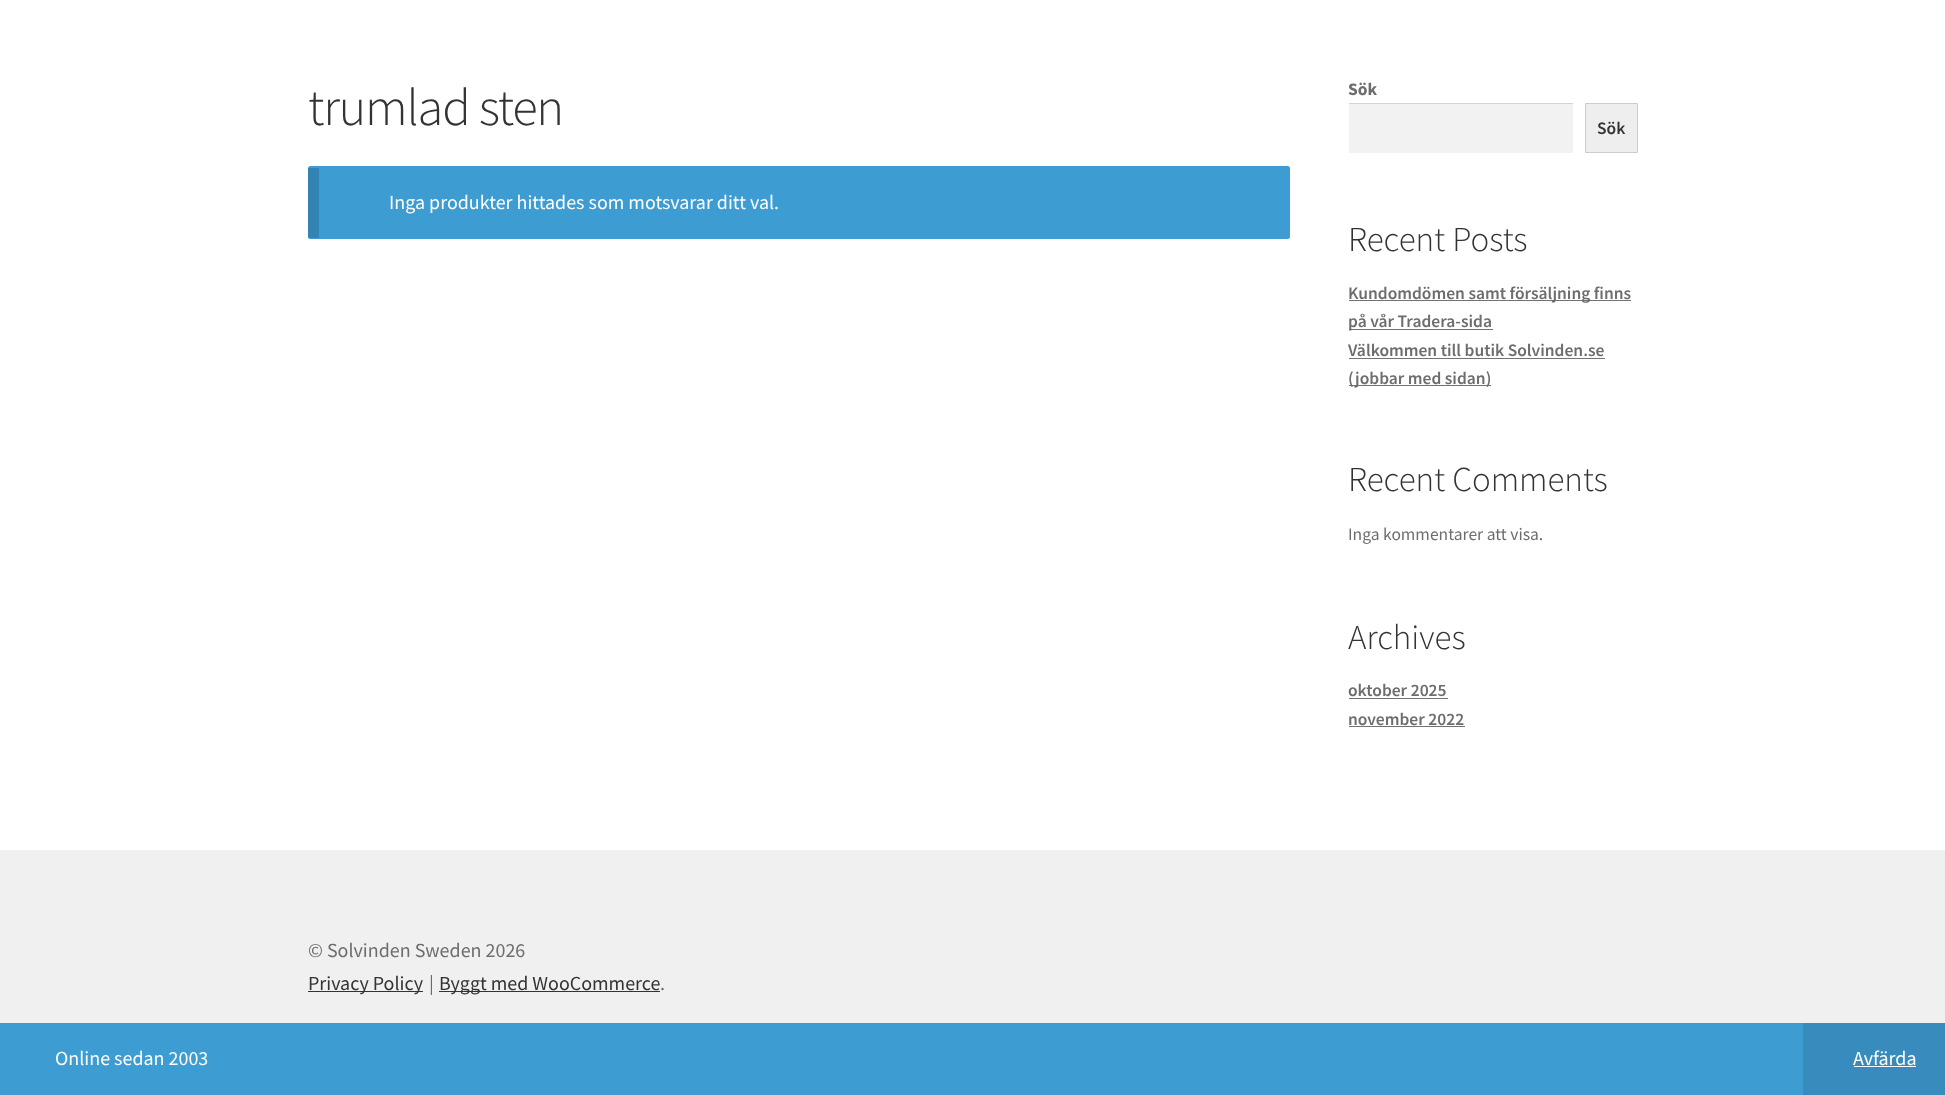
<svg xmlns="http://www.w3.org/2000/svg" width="1945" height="1095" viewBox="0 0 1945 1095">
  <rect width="100%" height="100%" fill="#fff"/>
  <rect x="308" y="166" width="982" height="73" rx="2.5" fill="#3d9cd2"/>
  <path d="M308 168h11v70H308z" fill="#00000026"/>
  <path d="M1349 104h224v49H1349z" fill="#f2f2f2"/>
  <path d="M1349 103h224v1H1349z" fill="#d4d4d4"/>
  <path d="M1585.5 103.5h52v49H1585.5z" fill="#eee" stroke="#ccc"/>
  <path d="M1349 300h282v1H1349z" fill="#727272"/>
  <path d="M1349 329h144v1H1349z" fill="#727272"/>
  <path d="M1349 358h256v1H1349z" fill="#727272"/>
  <path d="M1349 385h142v1H1349z" fill="#727272"/>
  <path d="M1349 698h99v1H1349z" fill="#727272"/>
  <path d="M1349 726h116v1H1349z" fill="#727272"/>
  <path d="M0 850h1945v173H0z" fill="#f0f0f0"/>
  <path d="M308 991h115v1H308z" fill="#333"/>
  <path d="M439 991h221v1H439z" fill="#333"/>
  <path d="M0 1023h1803v72H0z" fill="#3d9cd2"/>
  <path d="M1803 1023h142v72H1803z" fill="#378cbd"/>
  <path d="M1854 1066h62v1H1854z" fill="#fff"/>
  <text x="308" y="125" font-family="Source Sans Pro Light" font-size="52.5" font-weight="300" letter-spacing="-1.25" fill="#333">trumlad sten</text>
  <text x="389" y="209" font-family="Source Sans Pro" font-size="20" fill="#fff">Inga produkter hittades som motsvarar ditt val.</text>
  <text x="1348" y="95" font-family="Source Sans Pro" font-size="17.5" font-weight="bold" fill="#6d6d6d">Sök</text>
  <text x="1597" y="134" font-family="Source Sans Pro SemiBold" font-size="17.5" font-weight="600" fill="#333">Sök</text>
  <text x="1348" y="251" font-family="Source Sans Pro Light" font-size="35" font-weight="300" fill="#333">Recent Posts</text>
  <g font-family="Source Sans Pro SemiBold" font-size="17.5" font-weight="600" fill="#6d6d6d">
    <text x="1348" y="299">Kundomdömen samt försäljning finns</text>
    <text x="1348" y="327">på vår Tradera-sida</text>
    <text x="1348" y="356">Välkommen till butik Solvinden.se</text>
    <text x="1348" y="384">(jobbar med sidan)</text>
  </g>
  <text x="1348" y="491" font-family="Source Sans Pro Light" font-size="35" font-weight="300" fill="#333">Recent Comments</text>
  <text x="1348" y="540" font-family="Source Sans Pro" font-size="17.5" fill="#6d6d6d">Inga kommentarer att visa.</text>
  <text x="1348" y="649" font-family="Source Sans Pro Light" font-size="35" font-weight="300" fill="#333">Archives</text>
  <g font-family="Source Sans Pro SemiBold" font-size="17.5" font-weight="600" fill="#6d6d6d">
    <text x="1348" y="696">oktober 2025</text>
    <text x="1348" y="725">november 2022</text>
  </g>
  <text x="308" y="957" font-family="Source Sans Pro" font-size="20" fill="#6d6d6d">© Solvinden Sweden 2026</text>
  <text x="308" y="990" font-family="Source Sans Pro" font-size="20" fill="#333">Privacy Policy</text>
  <text x="429" y="990" font-family="Source Sans Pro" font-size="20" fill="#6d6d6d">|</text>
  <text x="439" y="990" font-family="Source Sans Pro" font-size="20" fill="#333">Byggt med WooCommerce</text>
  <text x="660" y="990" font-family="Source Sans Pro" font-size="20" fill="#6d6d6d">.</text>
  <g font-family="Source Sans Pro" font-size="20" fill="#fff">
    <text x="55" y="1065">Online sedan 2003</text>
    <text x="1853" y="1065">Avfärda</text>
  </g>
</svg>
